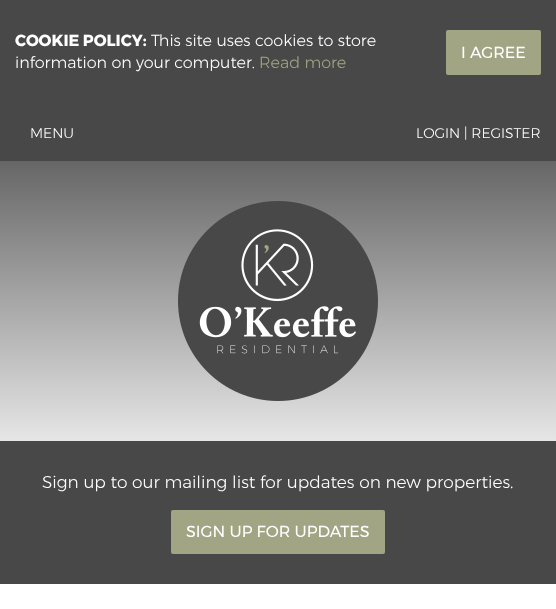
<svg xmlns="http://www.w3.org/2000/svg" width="556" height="609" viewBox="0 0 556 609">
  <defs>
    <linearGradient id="g1" gradientUnits="userSpaceOnUse" x1="278" y1="161" x2="278" y2="441"><stop offset="0" stop-color="#666"/><stop offset="0.2" stop-color="#808080"/><stop offset="1" stop-color="#e6e6e6"/></linearGradient>
  </defs>
  <rect width="100%" height="100%" fill="#fff"/>
  <path d="M0 0h556v161H0z" fill="#484848"/>
  <rect x="446" y="30" width="95" height="45" rx="2" fill="#a1a583"/>
  <path d="M0 161h556v280H0z" fill="url(#g1)"/>
  <image x="178" y="201" width="200" height="200" href="img/1.png"/>
  <path d="M0 441h556v143H0z" fill="#484848"/>
  <rect x="171" y="510" width="214" height="44" rx="2" fill="#a1a583"/>
  <text x="15" y="46" font-family="Montserrat" font-size="16" font-weight="bold" fill="#fff">COOKIE POLICY:</text>
  <g font-family="Montserrat" font-size="16" font-weight="300" fill="#fff">
    <text x="151" y="46">This site uses cookies to store</text>
    <text x="15" y="68">information on your computer.</text>
  </g>
  <text x="259" y="68" font-family="Montserrat" font-size="16" font-weight="300" fill="#a1a583">Read more</text>
  <text x="461" y="58" font-family="Montserrat" font-size="16" fill="#fff">I AGREE</text>
  <g font-family="Montserrat" font-size="14" font-weight="300" fill="#fff">
    <text x="30" y="138">MENU</text>
    <text x="416" y="138">LOGIN | REGISTER</text>
  </g>
  <text x="42" y="488" font-family="Montserrat" font-size="17" font-weight="300" fill="#fff">Sign up to our mailing list for updates on new properties.</text>
  <text x="186" y="537" font-family="Montserrat" font-size="16" fill="#fff">SIGN UP FOR UPDATES</text>
</svg>
